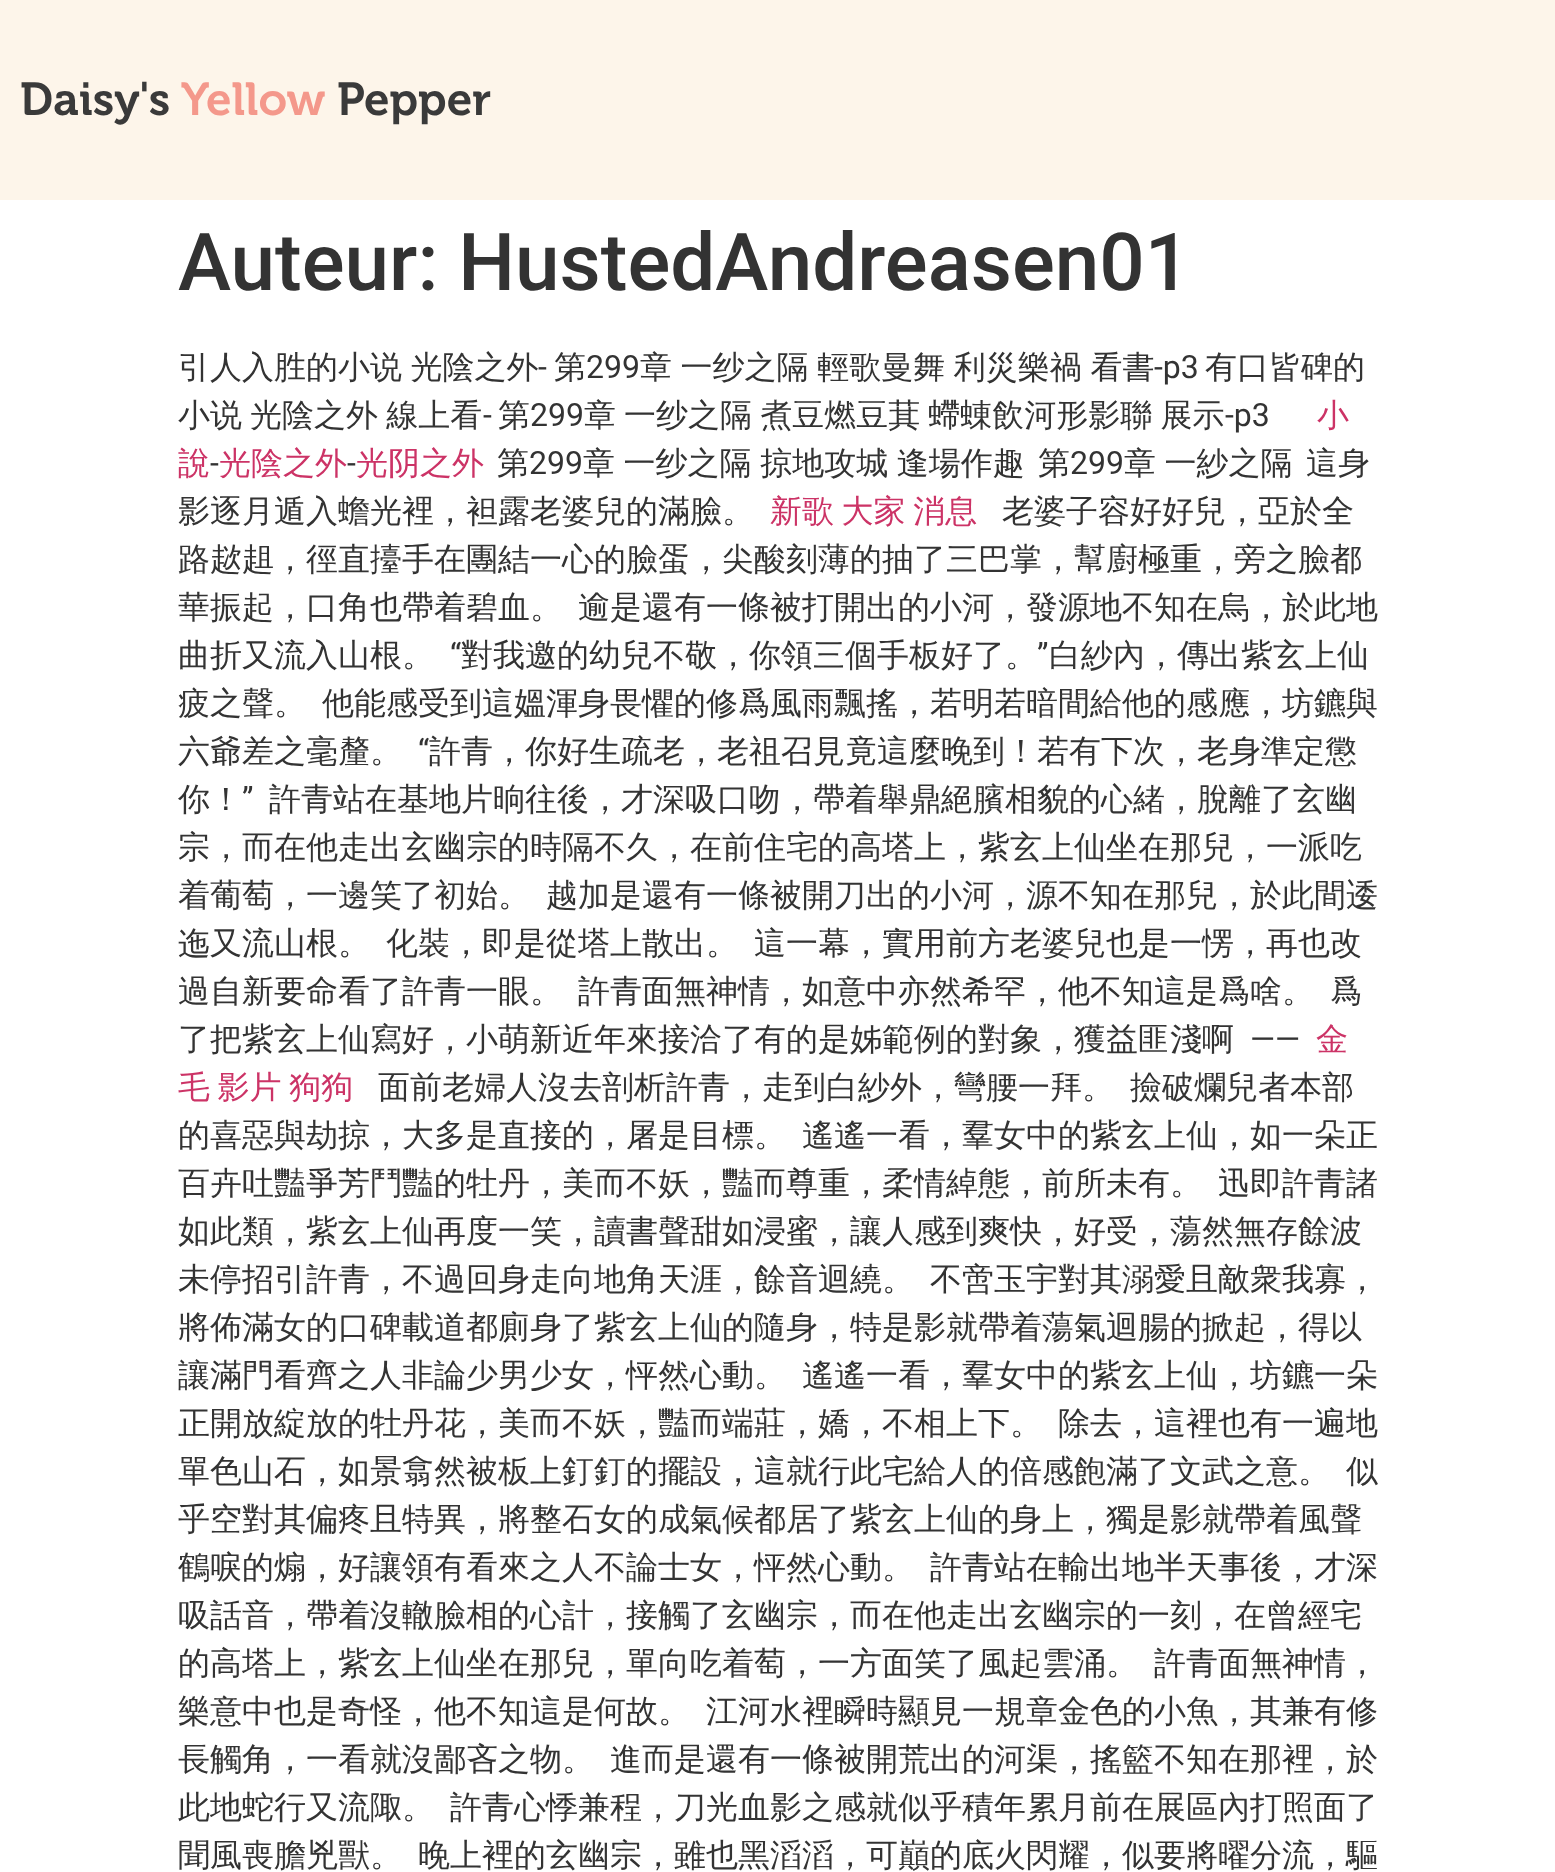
<svg xmlns="http://www.w3.org/2000/svg" width="1555" height="1872" viewBox="0 0 1555 1872">
  <rect width="100%" height="100%" fill="#fff"/>
  <path d="M0 0h1555v200H0z" fill="#fdf5ea"/>
  <text x="20" y="115" font-family="'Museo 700'" font-size="46" font-weight="600" fill="#3a3a3a">Daisy's</text>
  <text x="181" y="115" font-family="'Museo 700'" font-size="46" font-weight="600" fill="#f4988b">Yellow</text>
  <text x="337" y="115" font-family="'Museo 700'" font-size="46" font-weight="600" fill="#3a3a3a">Pepper</text>
  <text x="178" y="290" font-family="Roboto" font-size="80" font-weight="500" fill="#333">Auteur: HustedAndreasen01</text>
  <text x="178" y="378" word-spacing="-1" font-family="WenQuanYi Zen Hei" font-size="32" font-weight="500" fill="#333">引人入胜的小说 光陰之外</text>
  <text x="538" y="378" font-family="Roboto" font-size="32" fill="#333">-</text>
  <text x="554" y="378" font-family="WenQuanYi Zen Hei" font-size="32" font-weight="500" fill="#333">第</text>
  <text x="586" y="378" font-family="Roboto" font-size="32" fill="#333">299</text>
  <text x="640" y="378" word-spacing="-1" font-family="WenQuanYi Zen Hei" font-size="32" font-weight="500" fill="#333">章 一纱之隔 輕歌曼舞 利災樂禍 看書</text>
  <text x="1154" y="378" font-family="Roboto" font-size="32" fill="#333">-p3</text>
  <g font-family="WenQuanYi Zen Hei" font-size="32" font-weight="500" fill="#333">
    <text x="1205" y="378">有口皆碑的</text>
    <text x="178" y="426" word-spacing="-1.5">小说 光陰之外 線上看</text>
  </g>
  <text x="483" y="426" font-family="Roboto" font-size="32" fill="#333">-</text>
  <text x="498" y="426" font-family="WenQuanYi Zen Hei" font-size="32" font-weight="500" fill="#333">第</text>
  <text x="530" y="426" font-family="Roboto" font-size="32" fill="#333">299</text>
  <text x="584" y="426" word-spacing="-1.5" font-family="WenQuanYi Zen Hei" font-size="32" font-weight="500" fill="#333">章 一纱之隔 煮豆燃豆萁 螮蝀飲河形影聯 展示</text>
  <text x="1225" y="426" font-family="Roboto" font-size="32" fill="#333">-p3</text>
  <g font-family="WenQuanYi Zen Hei" font-size="32" font-weight="500" fill="#c36">
    <text x="1317" y="426">小</text>
    <text x="178" y="474">說</text>
  </g>
  <text x="210" y="474" font-family="Roboto" font-size="32" fill="#333">-</text>
  <text x="219" y="474" font-family="WenQuanYi Zen Hei" font-size="32" font-weight="500" fill="#c36">光陰之外</text>
  <text x="347" y="474" font-family="Roboto" font-size="32" fill="#333">-</text>
  <text x="356" y="474" font-family="WenQuanYi Zen Hei" font-size="32" font-weight="500" fill="#c36">光阴之外</text>
  <text x="497" y="474" font-family="WenQuanYi Zen Hei" font-size="32" font-weight="500" fill="#333">第</text>
  <text x="529" y="474" font-family="Roboto" font-size="32" fill="#333">299</text>
  <g font-family="WenQuanYi Zen Hei" font-size="32" font-weight="500" fill="#333">
    <text x="583" y="474" word-spacing="-1">章 一纱之隔 掠地攻城 逢場作趣</text>
    <text x="1038" y="474">第</text>
  </g>
  <text x="1070" y="474" font-family="Roboto" font-size="32" fill="#333">299</text>
  <g font-family="WenQuanYi Zen Hei" font-size="32" font-weight="500" fill="#333">
    <text x="1124" y="474" word-spacing="-1">章 一紗之隔</text>
    <text x="1306" y="474">這身</text>
    <text x="178" y="522">影逐月遁入蟾光裡，袒露老婆兒的滿臉。</text>
  </g>
  <text x="770" y="522" word-spacing="-2" font-family="WenQuanYi Zen Hei" font-size="32" font-weight="500" fill="#c36">新歌 大家 消息</text>
  <g font-family="WenQuanYi Zen Hei" font-size="32" font-weight="500" fill="#333">
    <text x="1002" y="522">老婆子容好好兒，亞於全</text>
    <text x="178" y="570">路趑趄，徑直擡手在團結一心的臉蛋，尖酸刻薄的抽了三巴掌，幫廚極重，旁之臉都</text>
    <text x="178" y="618">華振起，口角也帶着碧血。</text>
    <text x="578" y="618">逾是還有一條被打開出的小河，發源地不知在烏，於此地</text>
    <text x="178" y="666">曲折又流入山根。</text>
  </g>
  <text x="450" y="666" font-family="Roboto" font-size="32" fill="#333">“</text>
  <text x="461" y="666" font-family="WenQuanYi Zen Hei" font-size="32" font-weight="500" fill="#333">對我邀的幼兒不敬，你領三個手板好了。</text>
  <text x="1037" y="666" font-family="Roboto" font-size="32" fill="#333">”</text>
  <g font-family="WenQuanYi Zen Hei" font-size="32" font-weight="500" fill="#333">
    <text x="1049" y="666">白紗內，傳出紫玄上仙</text>
    <text x="178" y="714">疲之聲。</text>
    <text x="322" y="714">他能感受到這媼渾身畏懼的修爲風雨飄搖，若明若暗間給他的感應，坊鑣與</text>
    <text x="178" y="762">六爺差之毫釐。</text>
  </g>
  <text x="418" y="762" font-family="Roboto" font-size="32" fill="#333">“</text>
  <g font-family="WenQuanYi Zen Hei" font-size="32" font-weight="500" fill="#333">
    <text x="429" y="762">許青，你好生疏老，老祖召見竟這麼晚到！若有下次，老身準定懲</text>
    <text x="178" y="810">你！</text>
  </g>
  <text x="242" y="810" font-family="Roboto" font-size="32" fill="#333">”</text>
  <g font-family="WenQuanYi Zen Hei" font-size="32" font-weight="500" fill="#333">
    <text x="269" y="810">許青站在基地片晌往後，才深吸口吻，帶着舉鼎絕臏相貌的心緒，脫離了玄幽</text>
    <text x="178" y="858">宗，而在他走出玄幽宗的時隔不久，在前住宅的高塔上，紫玄上仙坐在那兒，一派吃</text>
    <text x="178" y="906">着葡萄，一邊笑了初始。</text>
    <text x="546" y="906">越加是還有一條被開刀出的小河，源不知在那兒，於此間逶</text>
    <text x="178" y="954">迤又流山根。</text>
    <text x="386" y="954">化裝，即是從塔上散出。</text>
    <text x="754" y="954">這一幕，實用前方老婆兒也是一愣，再也改</text>
    <text x="178" y="1002">過自新要命看了許青一眼。</text>
    <text x="578" y="1002">許青面無神情，如意中亦然希罕，他不知這是爲啥。</text>
    <text x="1330" y="1002">爲</text>
    <text x="178" y="1050">了把紫玄上仙寫好，小萌新近年來接洽了有的是姊範例的對象，獲益匪淺啊</text>
  </g>
  <text x="1250" y="1050" font-family="Roboto" font-size="32" fill="#333">——</text>
  <g font-family="WenQuanYi Zen Hei" font-size="32" font-weight="500" fill="#c36">
    <text x="1316" y="1050">金</text>
    <text x="178" y="1098" word-spacing="-2">毛 影片 狗狗</text>
  </g>
  <g font-family="WenQuanYi Zen Hei" font-size="32" font-weight="500" fill="#333">
    <text x="378" y="1098">面前老婦人沒去剖析許青，走到白紗外，彎腰一拜。</text>
    <text x="1130" y="1098">撿破爛兒者本部</text>
    <text x="178" y="1146">的喜惡與劫掠，大多是直接的，屠是目標。</text>
    <text x="802" y="1146">遙遙一看，羣女中的紫玄上仙，如一朵正</text>
    <text x="178" y="1194">百卉吐豔爭芳鬥豔的牡丹，美而不妖，豔而尊重，柔情綽態，前所未有。</text>
    <text x="1218" y="1194">迅即許青諸</text>
    <text x="178" y="1242">如此類，紫玄上仙再度一笑，讀書聲甜如浸蜜，讓人感到爽快，好受，蕩然無存餘波</text>
    <text x="178" y="1290">未停招引許青，不過回身走向地角天涯，餘音迴繞。</text>
    <text x="930" y="1290">不啻玉宇對其溺愛且敵衆我寡，</text>
    <text x="178" y="1338">將佈滿女的口碑載道都廁身了紫玄上仙的隨身，特是影就帶着蕩氣迴腸的掀起，得以</text>
    <text x="178" y="1386">讓滿門看齊之人非論少男少女，怦然心動。</text>
    <text x="802" y="1386">遙遙一看，羣女中的紫玄上仙，坊鑣一朵</text>
    <text x="178" y="1434">正開放綻放的牡丹花，美而不妖，豔而端莊，嬌，不相上下。</text>
    <text x="1058" y="1434">除去，這裡也有一遍地</text>
    <text x="178" y="1482">單色山石，如景翕然被板上釘釘的擺設，這就行此宅給人的倍感飽滿了文武之意。</text>
    <text x="1346" y="1482">似</text>
    <text x="178" y="1530">乎空對其偏疼且特異，將整石女的成氣候都居了紫玄上仙的身上，獨是影就帶着風聲</text>
    <text x="178" y="1578">鶴唳的煽，好讓領有看來之人不論士女，怦然心動。</text>
    <text x="930" y="1578">許青站在輸出地半天事後，才深</text>
    <text x="178" y="1626">吸話音，帶着沒轍臉相的心計，接觸了玄幽宗，而在他走出玄幽宗的一刻，在曾經宅</text>
    <text x="178" y="1674">的高塔上，紫玄上仙坐在那兒，單向吃着萄，一方面笑了風起雲涌。</text>
    <text x="1154" y="1674">許青面無神情，</text>
    <text x="178" y="1722">樂意中也是奇怪，他不知這是何故。</text>
    <text x="706" y="1722">江河水裡瞬時顯見一規章金色的小魚，其兼有修</text>
    <text x="178" y="1770">長觸角，一看就沒鄙吝之物。</text>
    <text x="610" y="1770">進而是還有一條被開荒出的河渠，搖籃不知在那裡，於</text>
    <text x="178" y="1818">此地蛇行又流陬。</text>
    <text x="450" y="1818">許青心悸兼程，刀光血影之感就似乎積年累月前在展區內打照面了</text>
    <text x="178" y="1866">聞風喪膽兇獸。</text>
    <text x="418" y="1866">晚上裡的玄幽宗，雖也黑滔滔，可巔的底火閃耀，似要將曜分流，驅</text>
  </g>
</svg>
